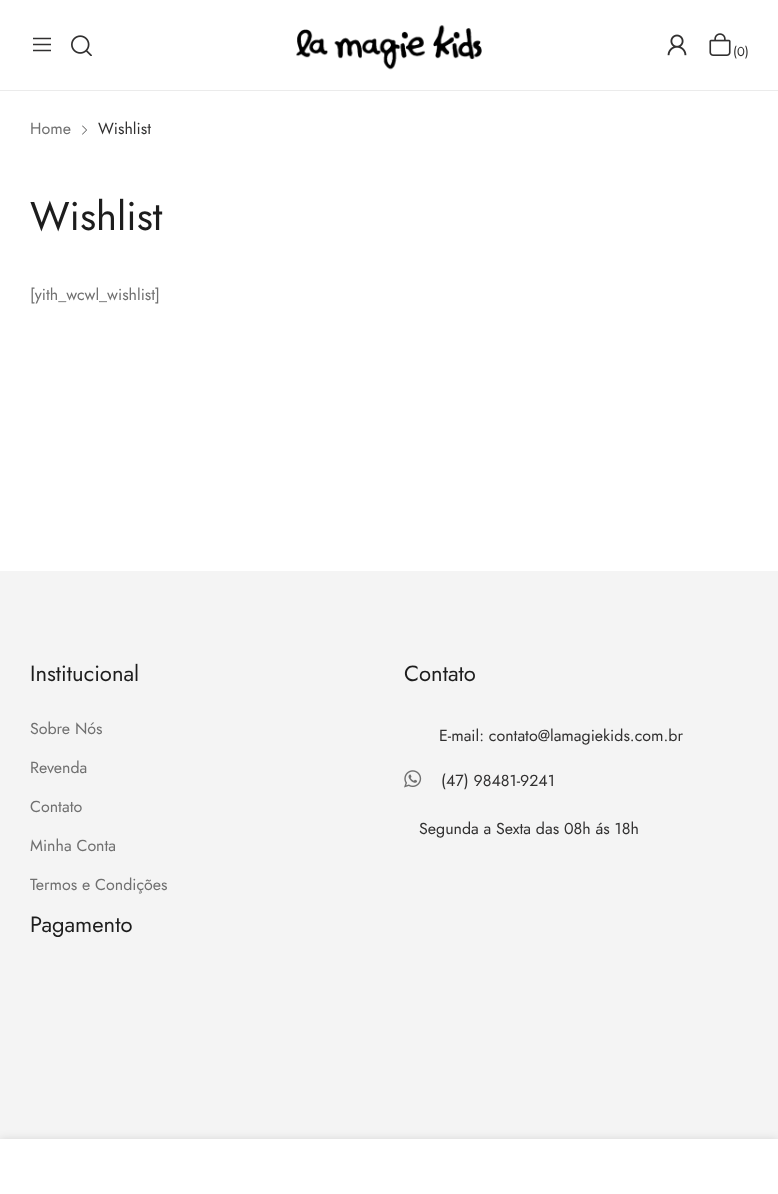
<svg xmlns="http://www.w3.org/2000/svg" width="778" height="1194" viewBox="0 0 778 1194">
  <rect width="100%" height="100%" fill="#fff"/>
  <path d="M0 90h778v1H0z" fill="#ebebeb"/>
  <image x="33" y="37" width="18" height="15" href="img/1.png"/>
  <image x="71" y="35" width="21" height="21" href="img/2.png"/>
  <image x="296" y="25" width="186" height="45" href="img/3.png"/>
  <image x="667" y="34" width="20" height="22" href="img/4.png"/>
  <image x="709" y="33" width="22" height="23" href="img/5.png"/>
  <path d="M0 571h778v568H0z" fill="#f4f4f4"/>
  <path d="M0 1139h778v55H0z" fill="#0000001f" filter="blur(4.5px)"/>
  <path d="M0 1139h778v55H0z" fill="#fff"/>
  <image x="82" y="125" width="5" height="10" href="img/6.png"/>
  <image x="404" y="770" width="18" height="18" href="img/7.png"/>
  <text x="733" y="56" font-family="Jost" font-size="13" fill="#313030">(0)</text>
  <text x="30" y="134" font-family="Jost" font-size="16" fill="#707070">Home</text>
  <text x="98" y="134" font-family="Jost" font-size="16" fill="#313030">Wishlist</text>
  <text x="30" y="230" font-family="Jost" font-size="40" fill="#1d1d1d">Wishlist</text>
  <text x="30" y="300" font-family="Jost" font-size="16" fill="#707070">[yith_wcwl_wishlist]</text>
  <text x="30" y="681" font-family="Jost" font-size="22" fill="#1d1d1d">Institucional</text>
  <g font-family="Jost" font-size="16" fill="#707070">
    <text x="30" y="734">Sobre Nós</text>
    <text x="30" y="773">Revenda</text>
    <text x="30" y="812">Contato</text>
    <text x="30" y="851">Minha Conta</text>
    <text x="30" y="890">Termos e Condições</text>
  </g>
  <g font-family="Jost" font-size="22" fill="#1d1d1d">
    <text x="30" y="932">Pagamento</text>
    <text x="404" y="681">Contato</text>
  </g>
  <g font-family="Jost" font-size="16" fill="#313030">
    <text x="439" y="741">E-mail: contato@lamagiekids.com.br</text>
    <text x="441" y="786">(47) 98481-9241</text>
    <text x="419" y="834">Segunda a Sexta das 08h ás 18h</text>
  </g>
</svg>
